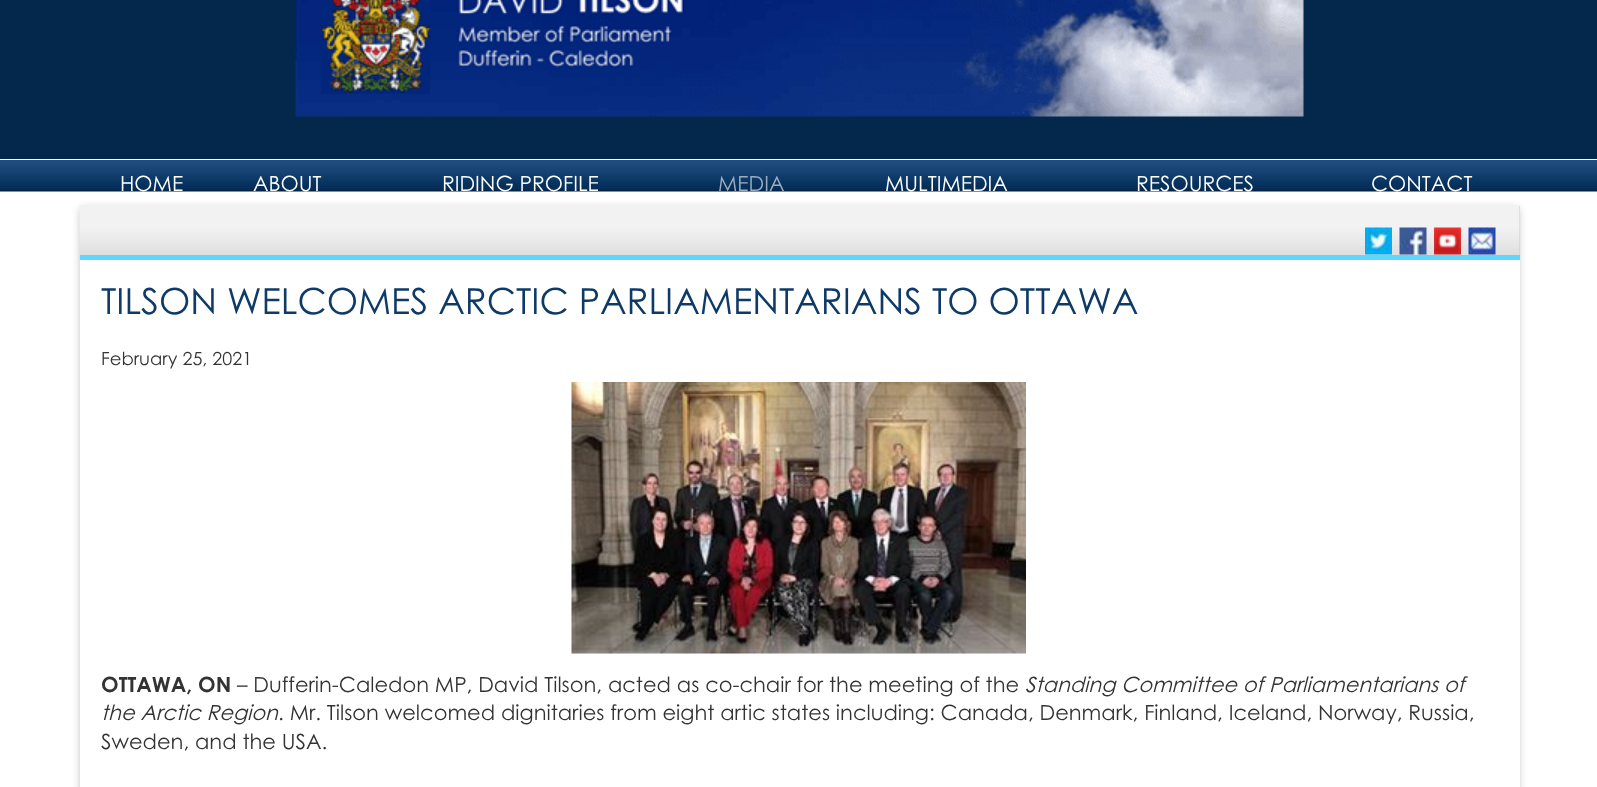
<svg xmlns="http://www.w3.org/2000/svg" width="1597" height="787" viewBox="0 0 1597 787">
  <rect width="100%" height="100%" fill="#fff"/>
  <path d="M0 0h1597v159H0z" fill="#04284c"/>
  <image x="295" y="0" width="1009" height="117" href="img/1.png"/>
  <image x="0" y="160" width="1597" height="32" href="img/2.png"/>
  <path d="M81 209h1437v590H81z" fill="#0000004d" filter="blur(4px)"/>
  <path d="M80 260h1440v527H80z" fill="#fff"/>
  <path d="M1519 206h1v49H1519z" fill="#ccc"/>
  <image x="79" y="205" width="1441" height="54" href="img/3.png"/>
  <path d="M80 255h1440v5H80z" fill="#5dd7fc"/>
  <image x="1365" y="227" width="27" height="28" href="img/4.png"/>
  <image x="1399" y="227" width="28" height="28" href="img/5.png"/>
  <image x="1434" y="227" width="27" height="28" href="img/6.png"/>
  <image x="1468" y="227" width="28" height="28" href="img/7.png"/>
  <image x="571" y="382" width="455" height="272" href="img/8.png"/>
  <g font-family="Century Gothic" font-size="21" fill="#fff">
    <text x="120" y="191">HOME</text>
    <text x="253" y="191">ABOUT</text>
    <text x="442" y="191">RIDING PROFILE</text>
  </g>
  <text x="718" y="191" font-family="Century Gothic" font-size="21" fill="#9cadbf">MEDIA</text>
  <g font-family="Century Gothic" font-size="21" fill="#fff">
    <text x="885" y="191">MULTIMEDIA</text>
    <text x="1136" y="191">RESOURCES</text>
    <text x="1371" y="191">CONTACT</text>
  </g>
  <text x="101" y="314" font-family="Century Gothic" font-size="36" fill="#0e3a68">TILSON WELCOMES ARCTIC PARLIAMENTARIANS TO OTTAWA</text>
  <text x="101" y="365" font-family="Century Gothic" font-size="18" fill="#333">February 25, 2021</text>
  <text x="101" y="692" font-family="Century Gothic" font-size="21" font-weight="bold" fill="#333">OTTAWA, ON</text>
  <text x="237" y="692" font-family="Century Gothic" font-size="21" fill="#333">– Dufferin-Caledon MP, David Tilson, acted as co-chair for the meeting of the</text>
  <g font-family="Century Gothic" font-size="21" font-style="italic" fill="#333">
    <text x="1025" y="692">Standing Committee of Parliamentarians of</text>
    <text x="101" y="720">the Arctic Region</text>
  </g>
  <g font-family="Century Gothic" font-size="21" fill="#333">
    <text x="278" y="720">. Mr. Tilson welcomed dignitaries from eight artic states including: Canada, Denmark, Finland, Iceland, Norway, Russia,</text>
    <text x="101" y="749">Sweden, and the USA.</text>
  </g>
</svg>
